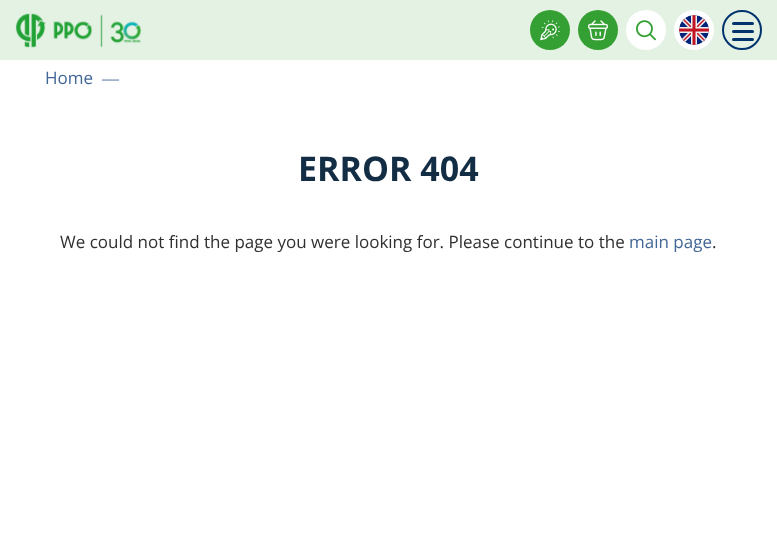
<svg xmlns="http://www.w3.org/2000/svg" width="777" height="552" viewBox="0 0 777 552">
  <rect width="100%" height="100%" fill="#fff"/>
  <path d="M0 0h777v60H0z" fill="#e4f2e4"/>
  <image x="15" y="13" width="127" height="35" href="img/1.png"/>
  <circle cx="550" cy="30" r="20" fill="#349f33"/>
  <image x="540" y="20" width="20" height="21" href="img/2.png"/>
  <circle cx="598" cy="30" r="20" fill="#349f33"/>
  <image x="588" y="20" width="20" height="21" href="img/3.png"/>
  <circle cx="646" cy="30" r="20" fill="#fff"/>
  <image x="636" y="20" width="20" height="21" href="img/4.png"/>
  <circle cx="694" cy="30" r="20" fill="#fff"/>
  <image x="679" y="15" width="30" height="30" href="img/5.png"/>
  <circle cx="742" cy="30" r="19" fill="none" stroke="#00336e" stroke-width="2"/>
  <rect x="732" y="22" width="22" height="3" rx="1.5" fill="#00336e"/>
  <rect x="732" y="30" width="22" height="3" rx="1.5" fill="#00336e"/>
  <rect x="732" y="38" width="22" height="3" rx="1.5" fill="#00336e"/>
  <text x="45" y="84" font-family="Open Sans" font-size="17" fill="#426796">Home</text>
  <text x="102" y="84" font-family="Liberation Serif" font-size="17" fill="#426796">—</text>
  <text x="298" y="181" font-family="Open Sans" font-size="34" font-weight="bold" fill="#132d44">ERROR 404</text>
  <text x="60" y="248" font-family="Open Sans" font-size="17" fill="#303030">We could not find the page you were looking for. Please continue to the</text>
  <text x="629" y="248" font-family="Open Sans" font-size="17" fill="#426796">main page</text>
  <text x="712" y="248" font-family="Open Sans" font-size="17" fill="#303030">.</text>
</svg>
